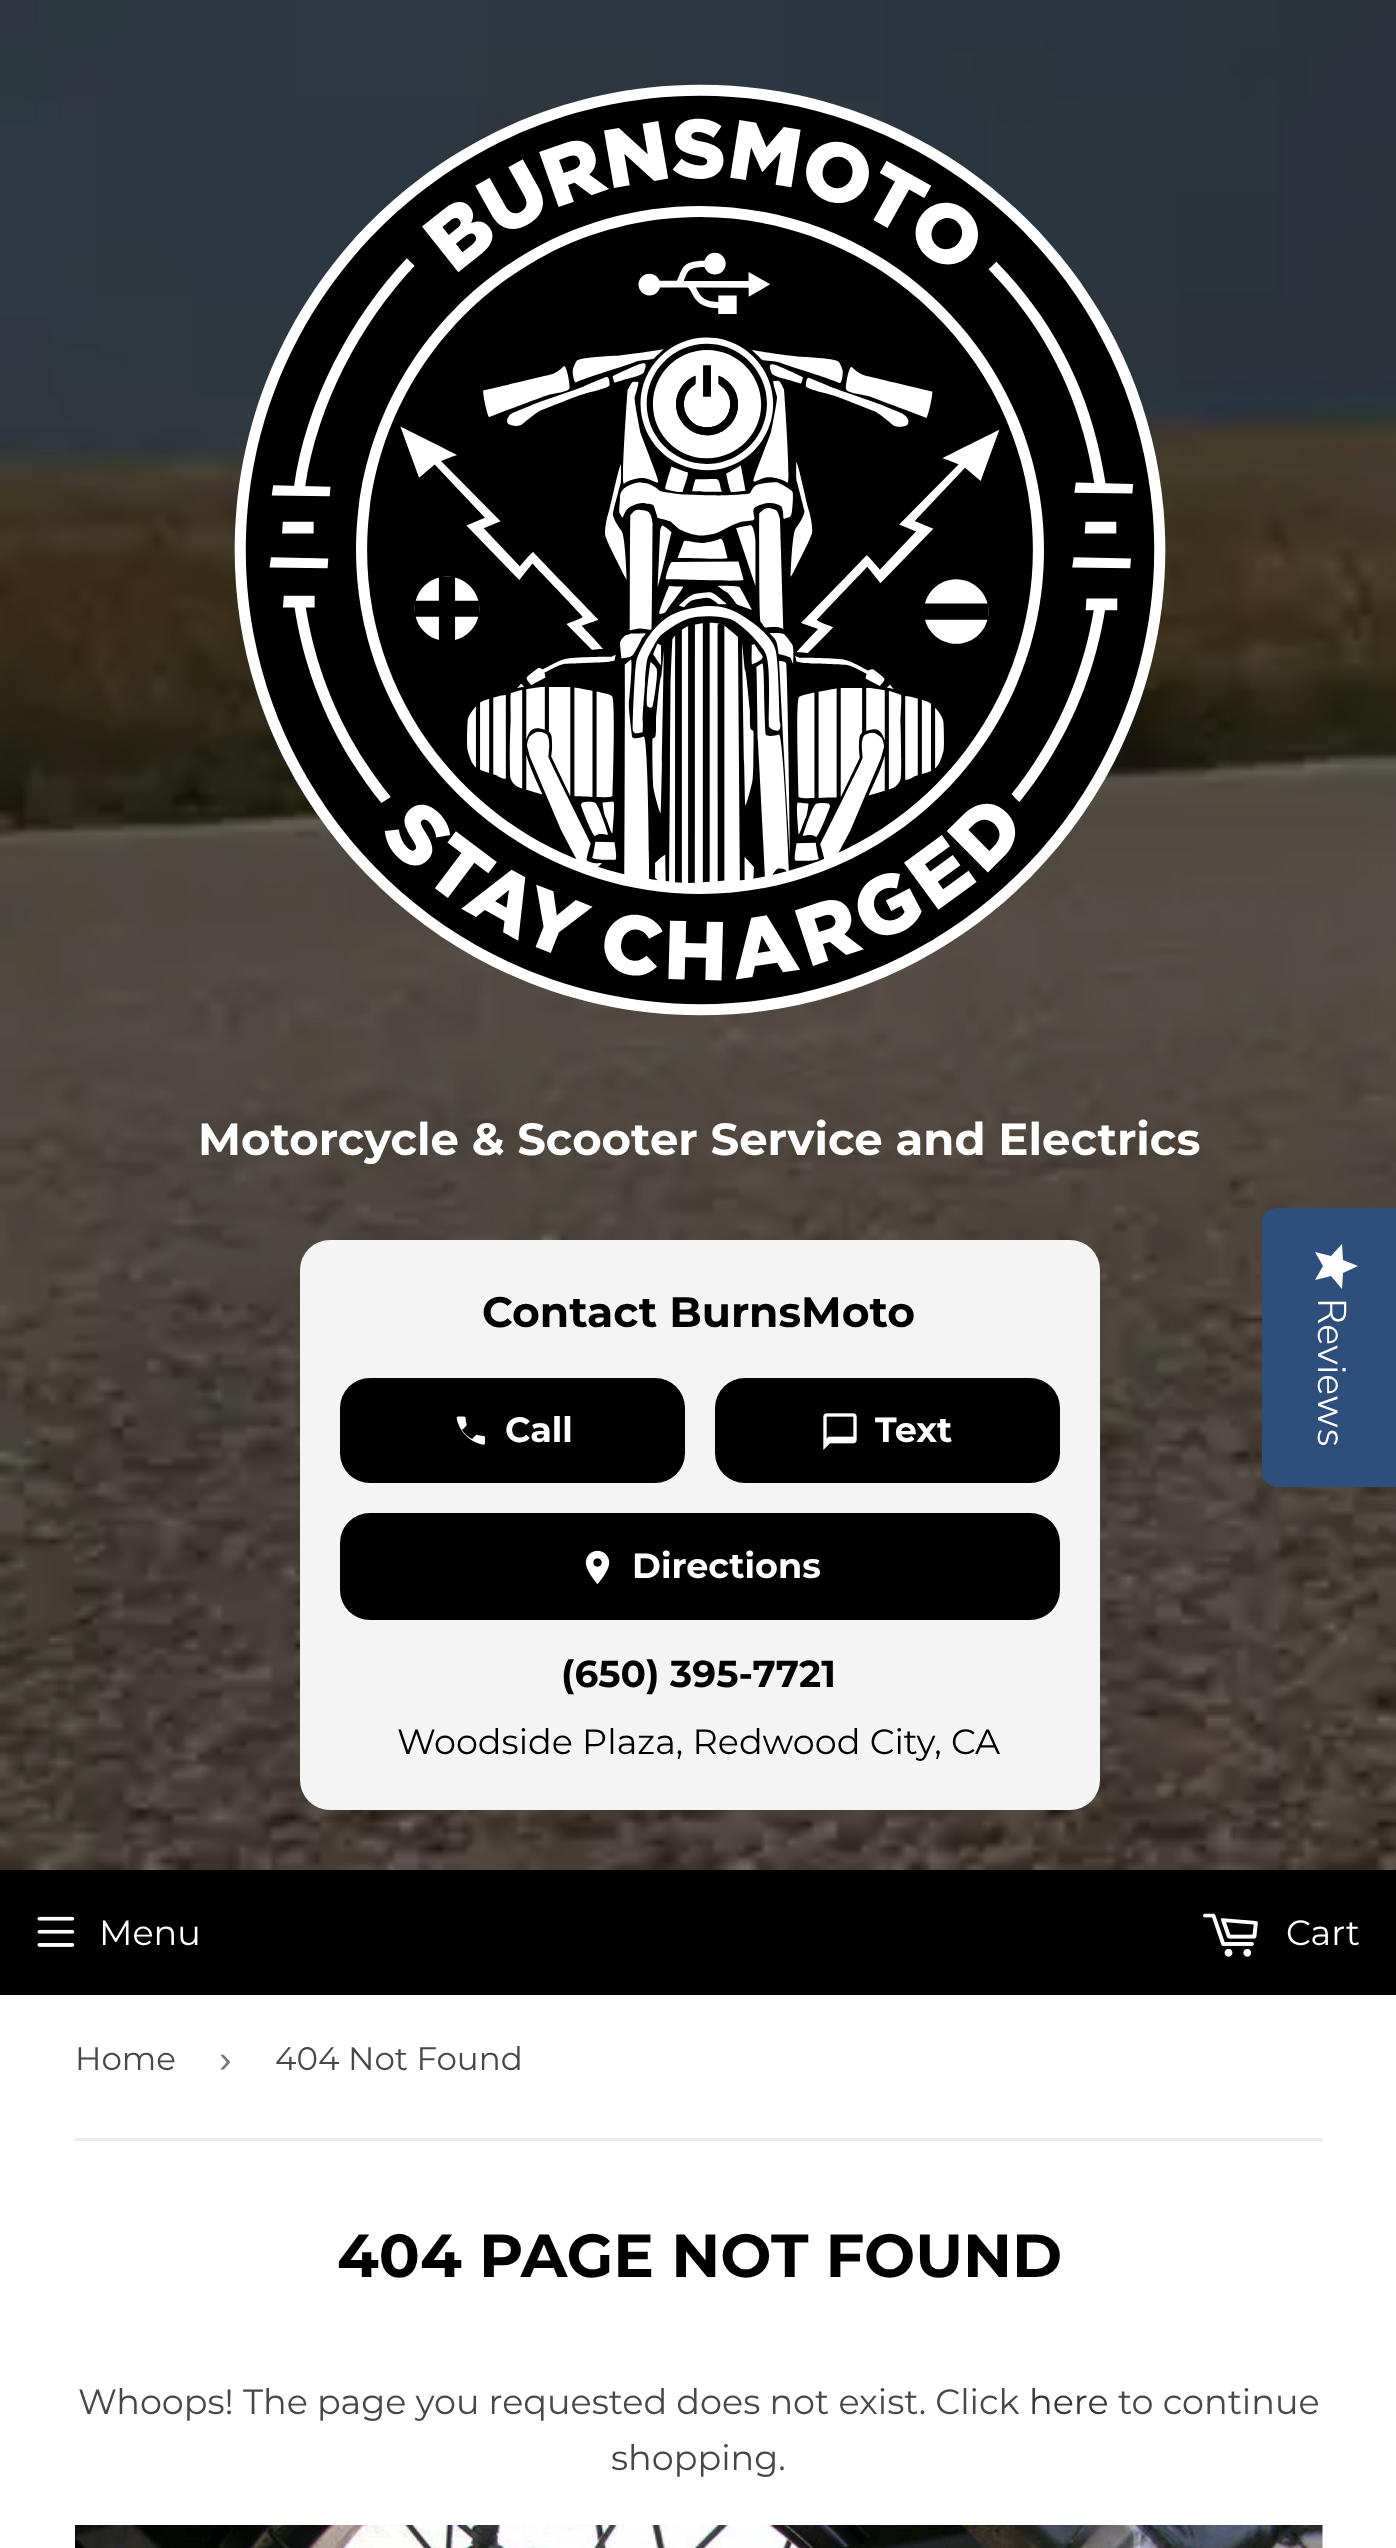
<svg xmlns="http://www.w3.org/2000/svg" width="1396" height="2548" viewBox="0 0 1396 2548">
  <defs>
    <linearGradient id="g1" gradientUnits="userSpaceOnUse" x1="1358" y1="1244" x2="1358" y2="1289"><stop offset="1" stop-color="#fff"/><stop offset="1" stop-color="#eaeaea"/></linearGradient>
  </defs>
  <rect width="100%" height="100%" fill="#fff"/>
  <image x="0" y="0" width="1396" height="1870" href="img/1.png"/>
  <image x="234" y="84" width="932" height="932" href="img/2.png"/>
  <rect x="300" y="1240" width="800" height="570" rx="30" fill="#f4f4f4"/>
  <rect x="340" y="1378" width="345" height="105" rx="30" fill="#000"/>
  <image x="456" y="1416" width="29" height="29" href="img/3.png"/>
  <rect x="715" y="1378" width="345" height="105" rx="30" fill="#000"/>
  <image x="823" y="1413" width="34" height="37" href="img/4.png"/>
  <rect x="340" y="1513" width="720" height="107" rx="30" fill="#000"/>
  <image x="585" y="1550" width="25" height="35" href="img/5.png"/>
  <path d="M0 1870h1396v125H0z" fill="#000"/>
  <image x="37" y="1916" width="38" height="31" href="img/6.png"/>
  <image x="1203" y="1913" width="55" height="44" href="img/7.png"/>
  <path d="M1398 1208V1487H1278C1269 1487 1262 1480 1262 1472V1222C1262 1214 1269 1208 1278 1208Z" fill="#2e4f7c"/>
  <path d="M1323 1266L1315 1280L1331 1276L1342 1289L1343 1273L1358 1266L1343 1260L1342 1244L1331 1256L1315 1252Z" fill="url(#g1)"/>
  <path d="M75 2138h1248v3H75z" fill="#ececec"/>
  <image x="75" y="2525" width="1248" height="23" href="img/8.png"/>
  <text x="198" y="1155" font-family="Montserrat" font-size="45" font-weight="bold" fill="#fff">Motorcycle &amp; Scooter Service and Electrics</text>
  <text x="482" y="1327" font-family="Montserrat" font-size="42.5" font-weight="bold" fill="#000">Contact BurnsMoto</text>
  <g font-family="Montserrat" font-size="35" font-weight="bold" fill="#fff">
    <text x="505" y="1442">Call</text>
    <text x="875" y="1442">Text</text>
    <text x="632" y="1578">Directions</text>
  </g>
  <text x="561" y="1687" font-family="Montserrat" font-size="37.5" font-weight="bold" fill="#000">(650) 395-7721</text>
  <text x="397" y="1754" font-family="Montserrat" font-size="35" fill="#000">Woodside Plaza, Redwood City, CA</text>
  <g font-family="Montserrat" font-size="35" fill="#fff">
    <text x="99" y="1945">Menu</text>
    <text x="1286" y="1945">Cart</text>
  </g>
  <text x="1318" y="1298" transform="rotate(90 1318 1298)" font-family="Nunito Sans" font-size="40" font-weight="300" fill="#fff">Reviews</text>
  <text x="75" y="2070" font-family="Montserrat" font-size="32.5" fill="#474747">Home</text>
  <text x="219" y="2072" font-family="Liberation Sans" font-size="37.5" fill="#767676">›</text>
  <text x="275" y="2070" font-family="Montserrat" font-size="32.5" fill="#474747">404 Not Found</text>
  <text x="337" y="2277" font-family="Montserrat" font-size="60.7" font-weight="bold" fill="#000">404 PAGE NOT FOUND</text>
  <text x="78" y="2414" font-family="Montserrat" font-size="35" fill="#474747">Whoops! The page you requested does not exist. Click</text>
  <text x="1029" y="2414" font-family="Montserrat" font-size="35" fill="#363636">here</text>
  <g font-family="Montserrat" font-size="35" fill="#474747">
    <text x="1118" y="2414">to continue</text>
    <text x="611" y="2470">shopping.</text>
  </g>
</svg>
